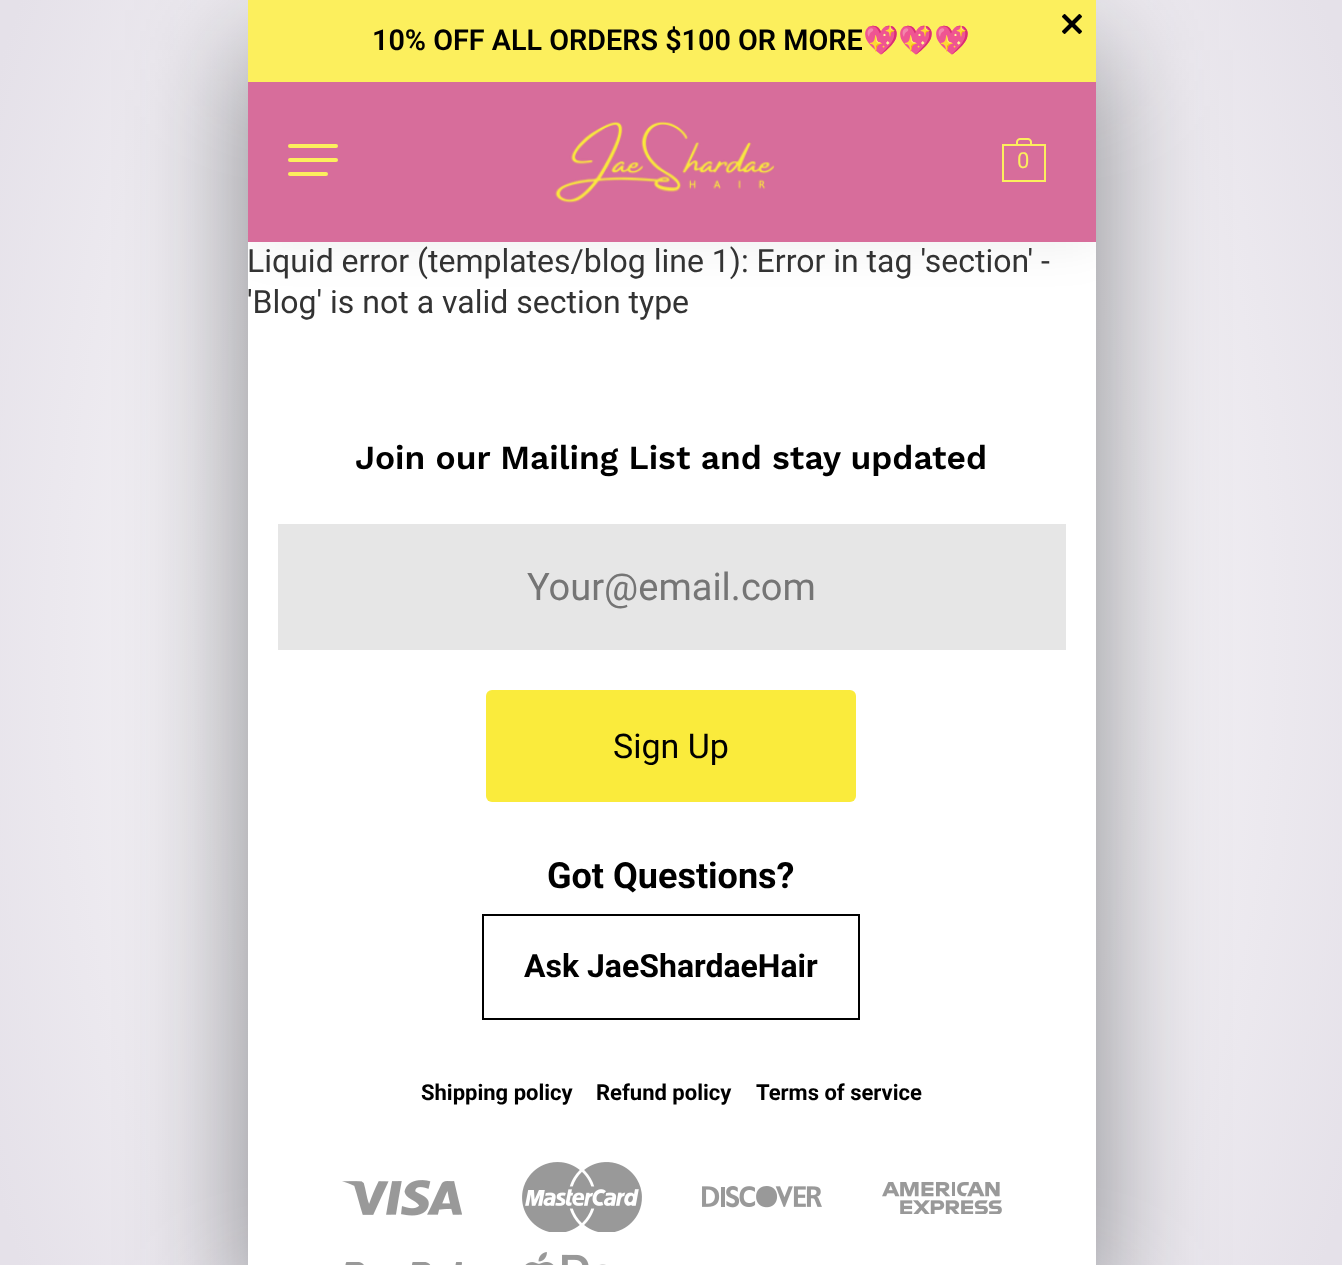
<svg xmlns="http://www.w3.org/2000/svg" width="1342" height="1265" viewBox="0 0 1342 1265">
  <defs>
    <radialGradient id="g1" gradientUnits="userSpaceOnUse" cx="0" cy="0" r="1" gradientTransform="matrix(752 0 0 1266 671 633)"><stop offset="0.25" stop-color="#fff"/><stop offset="1" stop-color="#e5e1e9"/></radialGradient>
    <clipPath id="clip1"><path d="M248 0h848v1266H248z"/></clipPath>
  </defs>
  <rect width="100%" height="100%" fill="#fff"/>
  <path d="M0 0h1342v1265H0z" fill="url(#g1)"/>
  <path d="M248 50h848v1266H248z" fill="#191d2180" filter="blur(60px)"/>
  <path d="M248 242h848v1023H248z" fill="#fff"/>
  <g clip-path="url(#clip1)">
    <path d="M250 84h848v160H250z" fill="#00000012" filter="blur(24px)"/>
  </g>
  <path d="M248 0h848v82H248z" fill="#fcef5d"/>
  <image x="1062" y="14" width="20" height="20" href="img/1.png"/>
  <path d="M248 82h848v160H248z" fill="#d76d9b"/>
  <rect x="288" y="144" width="50" height="4" rx="2" fill="#fcef5d"/>
  <rect x="288" y="158" width="50" height="4" rx="2" fill="#fcef5d"/>
  <rect x="288" y="172" width="40" height="4" rx="2" fill="#fcef5d"/>
  <image x="555" y="121" width="220" height="82" href="img/2.png"/>
  <path d="M278 524h788v126H278z" fill="#e6e6e6"/>
  <rect x="486" y="690" width="370" height="112" rx="6" fill="#faeb3c"/>
  <path d="M483 915h376v104H483z" fill="none" stroke="#000" stroke-width="2"/>
  <image x="342" y="1180" width="120" height="36" href="img/4.png"/>
  <image x="522" y="1162" width="120" height="70" href="img/5.png"/>
  <image x="702" y="1186" width="120" height="22" href="img/6.png"/>
  <image x="882" y="1182" width="120" height="32" href="img/7.png"/>
  <image x="345" y="1262" width="117" height="3" href="img/8.png"/>
  <image x="525" y="1252" width="81" height="13" href="img/9.png"/>
  <text x="372" y="50" font-family="Roboto" font-size="28.75" font-weight="600" fill="#000">10% OFF ALL ORDERS $100 OR MORE</text>
  <text x="863" y="50" font-family="Noto Color Emoji" font-size="28.75" font-weight="bold" fill="#000">💖💖💖</text>
  <text x="1017" y="168" font-family="Roboto" font-size="22" fill="#fcef5d">0</text>
  <image x="1002" y="138" width="44" height="44" href="img/3.png"/>
  <g font-family="Roboto" font-size="32" fill="#333">
    <text x="247" y="272">Liquid error (templates/blog line 1): Error in tag 'section' -</text>
    <text x="247" y="313">'Blog' is not a valid section type</text>
  </g>
  <text x="355" y="469" font-family="Work Sans" font-size="33.6" font-weight="600" fill="#000">Join our Mailing List and stay updated</text>
  <text x="527" y="600" font-family="Roboto" font-size="38" fill="#757575">Your@email.com</text>
  <text x="613" y="758" font-family="Roboto" font-size="34" fill="#000">Sign Up</text>
  <text x="547" y="888" font-family="Roboto" font-size="36" font-weight="bold" fill="#000">Got Questions?</text>
  <text x="524" y="977" font-family="Roboto" font-size="32" font-weight="bold" fill="#000">Ask JaeShardaeHair</text>
  <g font-family="Roboto" font-size="22" font-weight="bold" fill="#000">
    <text x="421" y="1100">Shipping policy</text>
    <text x="596" y="1100">Refund policy</text>
    <text x="756" y="1100">Terms of service</text>
  </g>
</svg>
